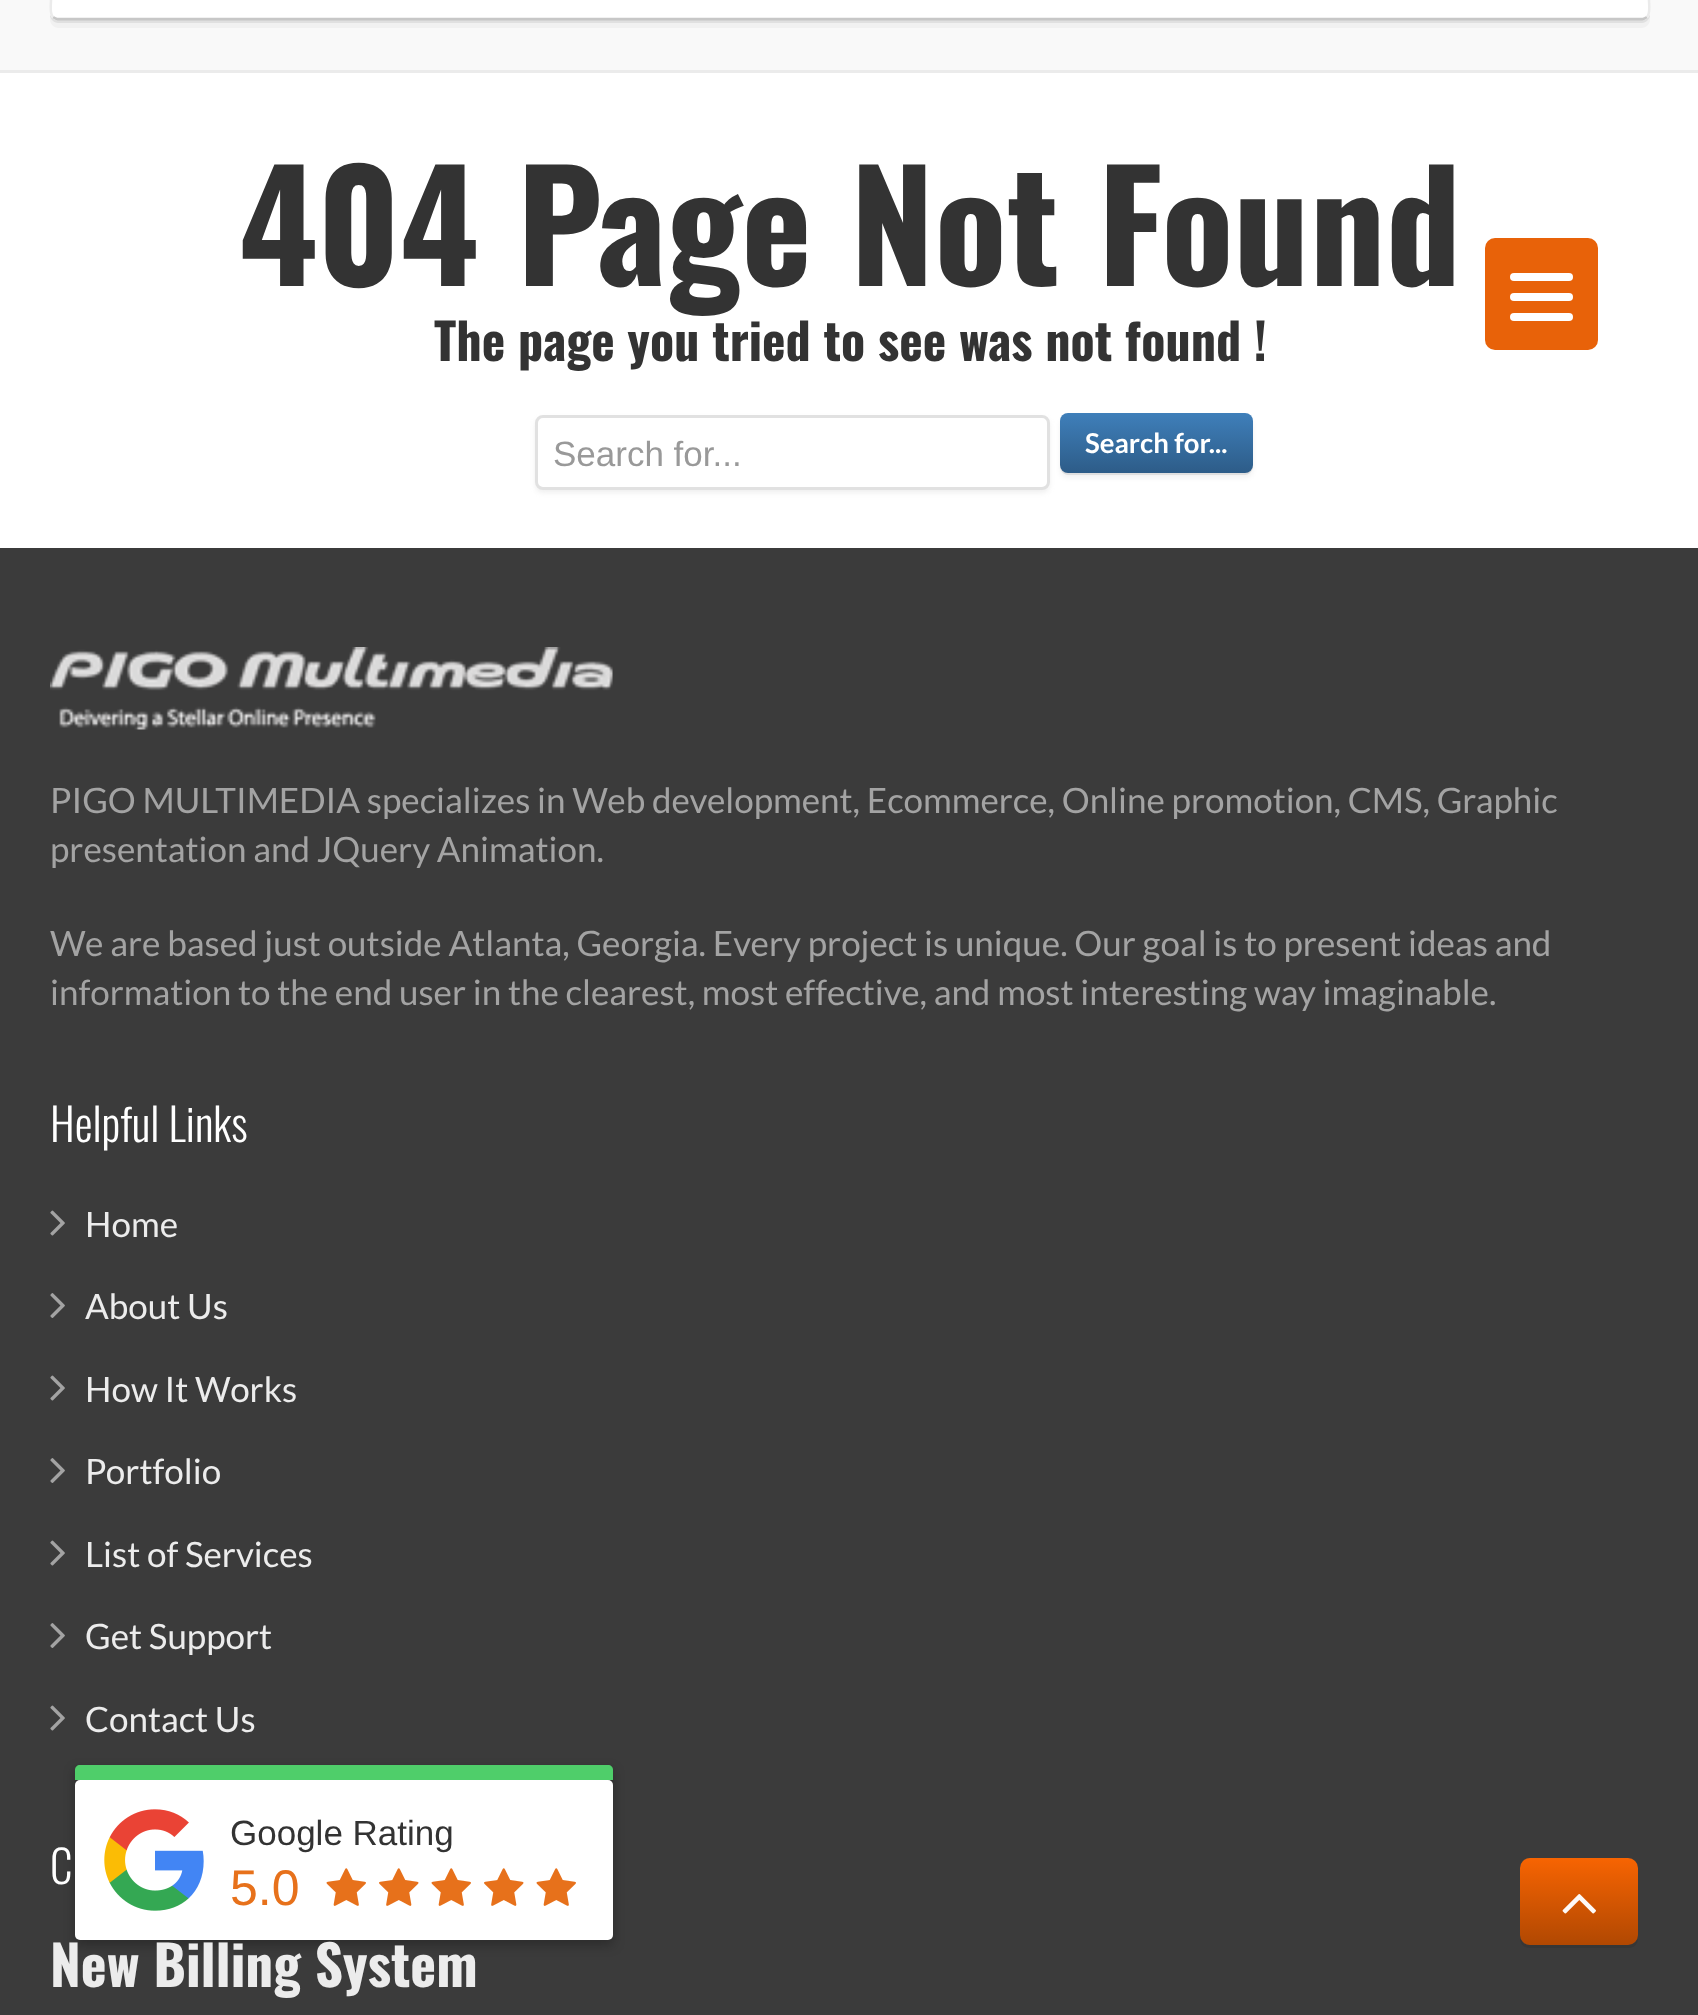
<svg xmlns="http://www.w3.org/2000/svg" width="1698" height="2015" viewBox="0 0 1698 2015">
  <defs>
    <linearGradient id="g1" gradientUnits="userSpaceOnUse" x1="1156" y1="413" x2="1156" y2="473"><stop offset="0" stop-color="#3f7fba"/><stop offset="1" stop-color="#2d5c88"/></linearGradient>
    <linearGradient id="g2" gradientUnits="userSpaceOnUse" x1="1579" y1="1858" x2="1579" y2="1945"><stop offset="0" stop-color="#f76402"/><stop offset="1" stop-color="#b14802"/></linearGradient>
  </defs>
  <rect width="100%" height="100%" fill="#fff"/>
  <path d="M0 0h1698v70H0z" fill="#f9f9f9"/>
  <path d="M0 70h1698v3H0z" fill="#ebebeb"/>
  <path d="M50 12V15C50 19 54 23 58 23H1642C1646 23 1650 19 1650 15V12C1650 17 1647 20 1642 20H58C53 20 50 17 50 12Z" fill="#e8e8e8"/>
  <path d="M50 12V20C50 24 54 28 58 28H1642C1646 28 1650 24 1650 20V12C1650 17 1647 20 1642 20H58C53 20 50 17 50 12Z" fill="#00000008"/>
  <rect x="50" y="-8" width="1600" height="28" rx="8" fill="#fff"/>
  <path d="M1647 17C1645.5 18 1644 19 1642.5 19H57.5C56 19 54.5 18 53 17" fill="none" stroke="#00000038" stroke-width="2.5"/>
  <path d="M53 17C49.5 13.5 51 3.5 51 1V-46C51-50.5 48.5-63 57-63.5H1643C1651.5-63 1649-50.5 1649-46V1C1649 3.5 1650.5 13.5 1647 17" fill="none" stroke="#ebebeb" stroke-width="2.5"/>
  <rect x="535" y="418" width="515" height="75" rx="8" fill="#b4b4b433" filter="blur(2.5px)"/>
  <rect x="536.5" y="416.5" width="512" height="72" rx="6.5" fill="#fff" stroke="#e1e1e1" stroke-width="3"/>
  <path d="M1060 465V467C1060 471 1064 475 1068 475H1245C1249 475 1253 471 1253 467V423L1252 420V465C1252 469 1249 472 1245 472H1068C1063 472 1060 469 1060 465Z" fill="#ebebeb"/>
  <rect x="1060" y="418" width="193" height="60" rx="8" fill="#0000000d" filter="blur(2.5px)"/>
  <rect x="1060" y="413" width="193" height="60" rx="8" fill="url(#g1)"/>
  <path d="M0 548h1698v1467H0z" fill="#3b3b3b"/>
  <image x="50" y="647" width="563" height="83" href="img/1.png"/>
  <image x="50" y="1210" width="15" height="26" href="img/2.png"/>
  <image x="50" y="1293" width="15" height="25" href="img/3.png"/>
  <image x="50" y="1375" width="15" height="26" href="img/2.png"/>
  <image x="50" y="1458" width="15" height="25" href="img/3.png"/>
  <image x="50" y="1540" width="15" height="26" href="img/2.png"/>
  <image x="50" y="1623" width="15" height="25" href="img/3.png"/>
  <image x="50" y="1705" width="15" height="26" href="img/2.png"/>
  <path d="M75 1770h538v175H75z" fill="#00000042" filter="blur(6px)"/>
  <path d="M80 1765H608C611 1765 613 1767 613 1770V1780H75V1770C75 1767 77 1765 80 1765Z" fill="#4fce6a"/>
  <rect x="75" y="1780" width="538" height="160" rx="5" fill="#fff"/>
  <image x="104" y="1809" width="100" height="102" href="img/4.png"/>
  <image x="326" y="1868" width="40" height="38" href="img/5.png"/>
  <image x="379" y="1868" width="40" height="38" href="img/6.png"/>
  <image x="431" y="1868" width="40" height="38" href="img/5.png"/>
  <image x="484" y="1868" width="40" height="38" href="img/6.png"/>
  <image x="536" y="1868" width="40" height="38" href="img/5.png"/>
  <rect x="1485" y="238" width="113" height="112" rx="10" fill="#e86209"/>
  <rect x="1510" y="293" width="63" height="8" rx="4" fill="#fff"/>
  <rect x="1510" y="273" width="63" height="8" rx="4" fill="#fff"/>
  <rect x="1510" y="313" width="63" height="8" rx="4" fill="#fff"/>
  <path d="M1520 1935V1938C1520 1944 1524 1948 1530 1948H1628C1634 1948 1638 1944 1638 1938V1870L1637 1867L1638 1935C1638 1941 1633 1945 1628 1945H1530C1524 1945 1520 1941 1520 1935Z" fill="#363636"/>
  <rect x="1520" y="1858" width="118" height="87" rx="10" fill="url(#g2)"/>
  <image x="1562" y="1894" width="34" height="20" href="img/7.png"/>
  <text x="239" y="286" font-family="Oswald" font-size="150" font-weight="bold" fill="#333">404 Page Not Found</text>
  <text x="434" y="361" font-family="Oswald" font-size="50" font-weight="bold" fill="#333">The page you tried to see was not found !</text>
  <text x="553" y="466" font-family="Liberation Sans" font-size="35" fill="#999">Search for...</text>
  <text x="1085" y="453" font-family="Lato" font-size="27.5" font-weight="bold" fill="#fff">Search for...</text>
  <g font-family="Lato" font-size="35" fill="#a3a3a3">
    <text x="50" y="813">PIGO MULTIMEDIA specializes in Web development, Ecommerce, Online promotion, CMS, Graphic</text>
    <text x="50" y="862">presentation and JQuery Animation.</text>
    <text x="50" y="956">We are based just outside Atlanta, Georgia. Every project is unique. Our goal is to present ideas and</text>
    <text x="50" y="1005">information to the end user in the clearest, most effective, and most interesting way imaginable.</text>
  </g>
  <text x="50" y="1142" font-family="Oswald" font-size="45" font-weight="300" fill="#fff">Helpful Links</text>
  <g font-family="Lato" font-size="35" fill="#ececec">
    <text x="85" y="1237">Home</text>
    <text x="85" y="1319">About Us</text>
    <text x="85" y="1402">How It Works</text>
    <text x="85" y="1484">Portfolio</text>
    <text x="85" y="1567">List of Services</text>
    <text x="85" y="1649">Get Support</text>
    <text x="85" y="1732">Contact Us</text>
  </g>
  <text x="230" y="1845" font-family="Liberation Sans" font-size="35" fill="#333">Google Rating</text>
  <text x="230" y="1905" font-family="Liberation Sans" font-size="50" fill="#e7711b">5.0</text>
  <text x="50" y="1884" font-family="Oswald" font-size="45" font-weight="300" fill="#fff">C</text>
  <text x="50" y="1987" font-family="Oswald" font-size="55" font-weight="bold" fill="#ececec">New Billing System</text>
</svg>
